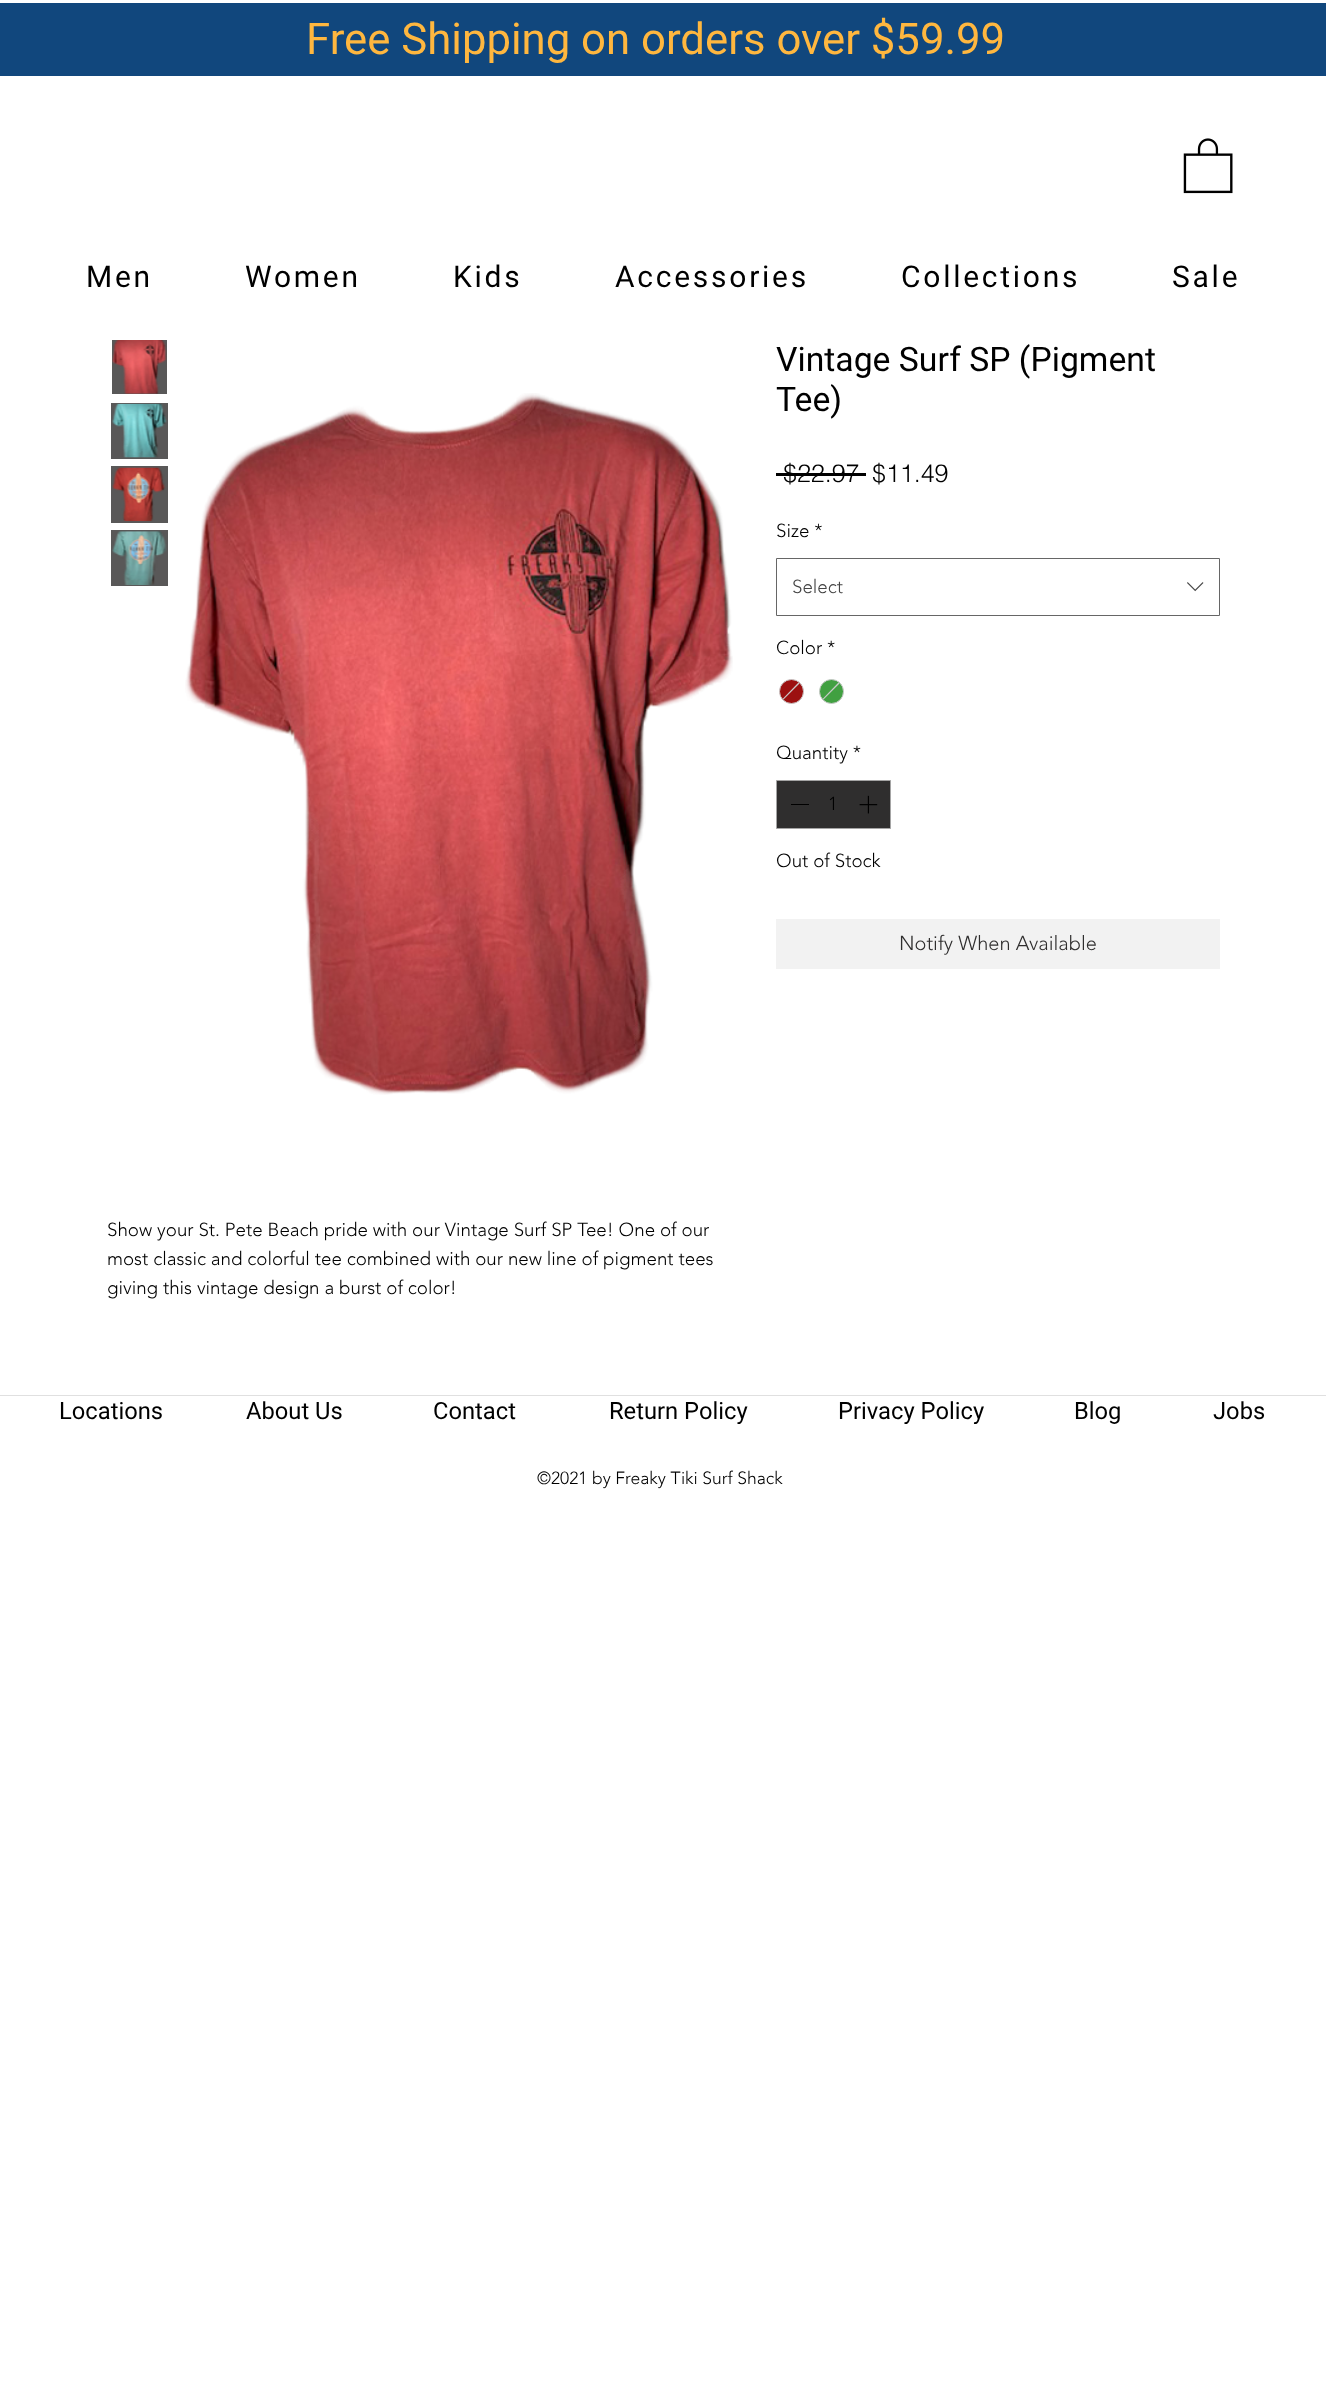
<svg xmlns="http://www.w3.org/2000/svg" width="1326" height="2381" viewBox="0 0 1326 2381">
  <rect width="100%" height="100%" fill="#fff"/>
  <path d="M0 3h1326v73H0z" fill="#11477d"/>
  <image x="1183" y="138" width="50" height="56" href="img/1.png"/>
  <path d="M776 473h90v3H776z" fill="#000"/>
  <path d="M776.5 558.5h443v57H776.5z" fill="none" stroke="#666"/>
  <image x="1187" y="582" width="17" height="10" href="img/2.png"/>
  <circle cx="791.5" cy="691.5" r="12" fill="#9c1010" stroke="#c9c9c9"/>
  <path d="M799.5 683.5L783.5 699.5L782.5 699L798.5 682.5Z" fill="#c9c9c9"/>
  <circle cx="831.5" cy="691.5" r="12" fill="#41a041" stroke="#c9c9c9"/>
  <path d="M839.5 683.5L823.5 699.5L822.5 699L838.5 682.5Z" fill="#c9c9c9"/>
  <path d="M776.5 780.5h114v48H776.5z" fill="#2f2e2e" stroke="#a4a4a4"/>
  <path d="M791 804h18v1H791z" fill="#000"/>
  <image x="859" y="795" width="19" height="19" href="img/3.png"/>
  <path d="M776 919h444v50H776z" fill="#f2f2f2"/>
  <path d="M112 340h55v54H112z" fill="#595858"/>
  <image x="112" y="340" width="55" height="54" href="img/4.png"/>
  <path d="M111 403h57v56H111z" fill="#595858"/>
  <image x="112" y="403" width="55" height="55" href="img/5.png"/>
  <path d="M111 466h57v57H111z" fill="#595858"/>
  <image x="112" y="467" width="54" height="55" href="img/6.png"/>
  <path d="M111 530h57v56H111z" fill="#595858"/>
  <image x="112" y="531" width="55" height="54" href="img/7.png"/>
  <image x="185" y="393" width="548" height="702" href="img/8.png"/>
  <path d="M0 1395h1326v1H0z" fill="#e0e0e0"/>
  <text x="306" y="54" font-family="Roboto" font-size="43.75" fill="#ffb73f">Free Shipping on orders over $59.99</text>
  <g font-family="Roboto" font-size="30" letter-spacing="2.75" fill="#000">
    <text x="86" y="287">Men</text>
    <text x="245" y="287">Women</text>
    <text x="453" y="287">Kids</text>
    <text x="615" y="287">Accessories</text>
    <text x="901" y="287">Collections</text>
    <text x="1172" y="287">Sale</text>
  </g>
  <g font-family="Roboto" font-size="33.75" fill="#000">
    <text x="776" y="371">Vintage Surf SP (Pigment</text>
    <text x="776" y="411">Tee)</text>
  </g>
  <g font-family="helvetica" font-size="25" font-weight="300" fill="#000">
    <text x="783" y="482">$22.97</text>
    <text x="872" y="482">$11.49</text>
  </g>
  <text x="776" y="537" font-family="'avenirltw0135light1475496'" font-size="18.75" font-weight="300" fill="#000">Size *</text>
  <text x="792" y="593" font-family="'avenirltw0135light1475496'" font-size="18.75" font-weight="300" fill="#444">Select</text>
  <g font-family="'avenirltw0135light1475496'" font-size="18.75" font-weight="300" fill="#000">
    <text x="776" y="654">Color *</text>
    <text x="776" y="759">Quantity *</text>
    <text x="828" y="810">1</text>
    <text x="776" y="867">Out of Stock</text>
  </g>
  <text x="899" y="950" font-family="'avenirltw0135light1475496'" font-size="20" font-weight="300" fill="#2f2e2e">Notify When Available</text>
  <g font-family="'avenirltw0135light1475496'" font-size="18.75" font-weight="300" fill="#000">
    <text x="107" y="1236">Show your St. Pete Beach pride with our Vintage Surf SP Tee! One of our</text>
    <text x="107" y="1265">most classic and colorful tee combined with our new line of pigment tees</text>
    <text x="107" y="1294">giving this vintage design a burst of color!</text>
  </g>
  <g font-family="Roboto" font-size="23.75" fill="#000">
    <text x="59" y="1419">Locations</text>
    <text x="246" y="1419">About Us</text>
    <text x="433" y="1419">Contact</text>
    <text x="609" y="1419">Return Policy</text>
    <text x="838" y="1419">Privacy Policy</text>
    <text x="1074" y="1419">Blog</text>
    <text x="1213" y="1419">Jobs</text>
  </g>
  <text x="537" y="1484" font-family="'avenirltw0135light1475496'" font-size="17.5" font-weight="300" fill="#000">©2021 by Freaky Tiki Surf Shack</text>
</svg>
